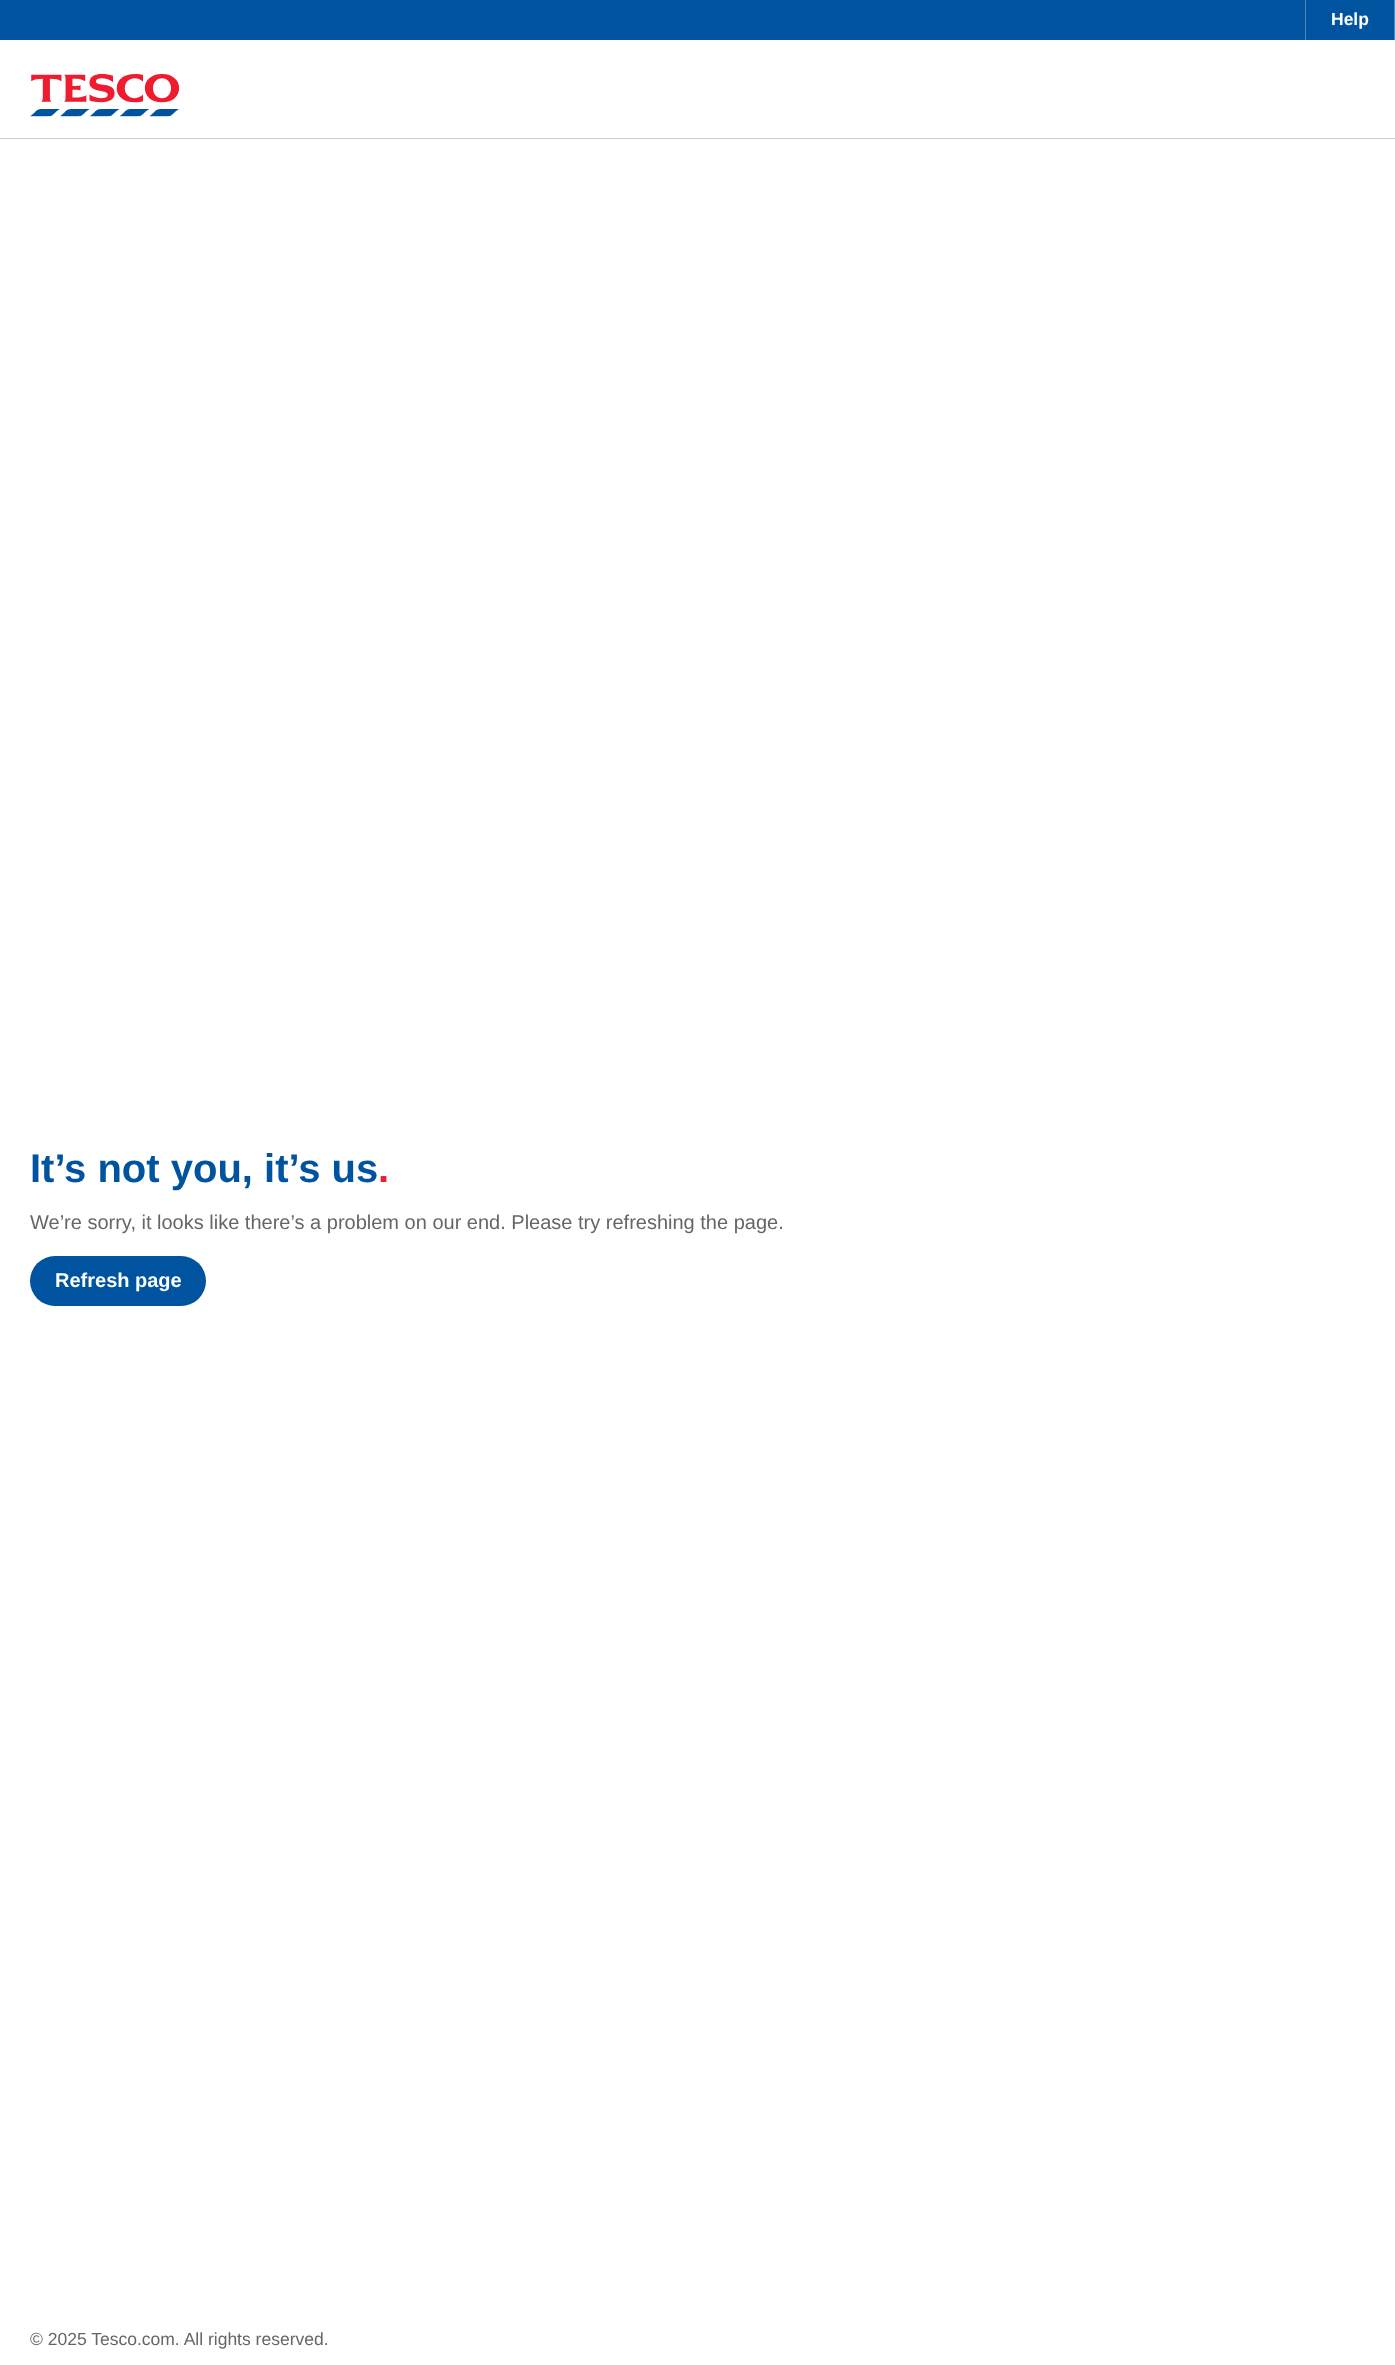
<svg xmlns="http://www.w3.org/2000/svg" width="1395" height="2365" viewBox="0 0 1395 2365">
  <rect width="100%" height="100%" fill="#fff"/>
  <path d="M0 0h1394v40H0z" fill="#00539f"/>
  <path d="M1394 0h1v40H1394z" fill="#4d87bc"/>
  <path d="M1305 0h1v40H1305z" fill="#4d87bc"/>
  <image x="30" y="74" width="150" height="43" href="img/1.png"/>
  <path d="M0 138h1395v1H0z" fill="#ccc"/>
  <rect x="30" y="1256" width="176" height="50" rx="25" fill="#00539f"/>
  <text x="1331" y="25" font-family="Liberation Sans" font-size="17.5" font-weight="bold" fill="#fff">Help</text>
  <text x="30" y="1182" font-family="Liberation Sans" font-size="40" font-weight="bold" fill="#00539f">It’s not you, it’s us</text>
  <text x="378" y="1182" font-family="Liberation Sans" font-size="40" font-weight="bold" fill="#ee1c2e">.</text>
  <text x="30" y="1229" font-family="Liberation Sans" font-size="20" fill="#666">We’re sorry, it looks like there’s a problem on our end. Please try refreshing the page.</text>
  <text x="55" y="1287" font-family="Liberation Sans" font-size="20" font-weight="bold" fill="#fff">Refresh page</text>
  <text x="30" y="2345" font-family="Liberation Sans" font-size="17.5" fill="#666">© 2025 Tesco.com. All rights reserved.</text>
</svg>
